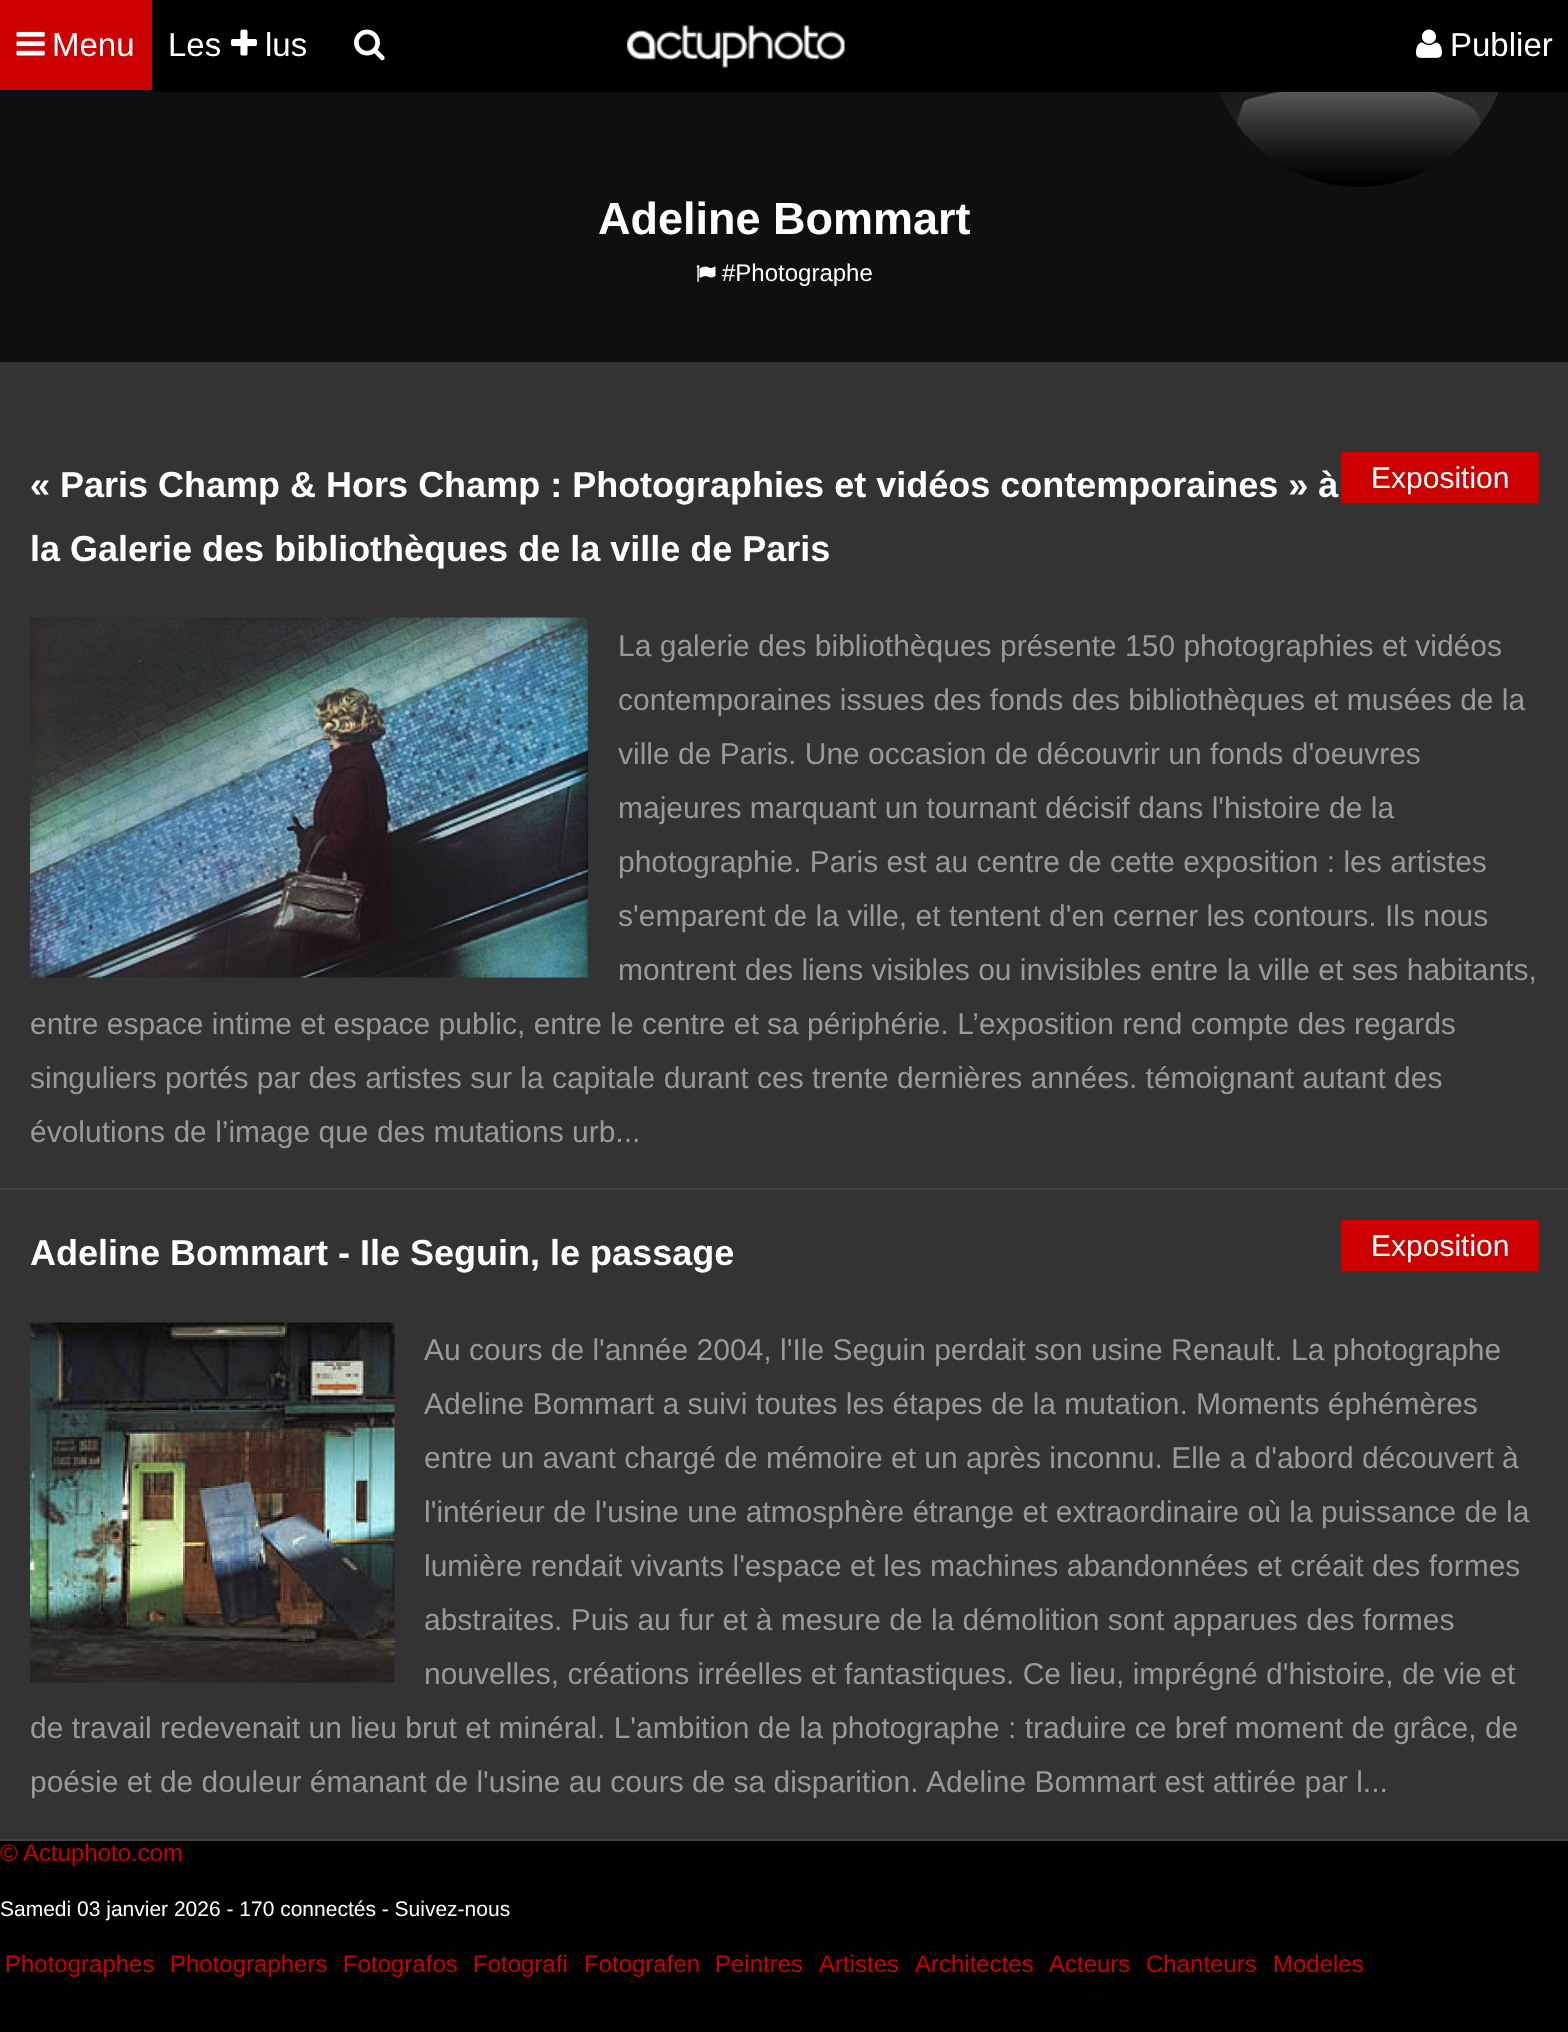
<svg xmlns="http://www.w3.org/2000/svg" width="1568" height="2032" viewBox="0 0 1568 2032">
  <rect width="100%" height="100%" fill="#333"/>
  <path d="M0 0h1568v92H0z" fill="#000"/>
  <image x="626" y="25" width="219" height="43" href="img/1.png"/>
  <path d="M0 0h152v90H0z" fill="#c00"/>
  <image x="16" y="31" width="29" height="25" href="img/2.png"/>
  <image x="231" y="29" width="26" height="27" href="img/3.png"/>
  <image x="354" y="29" width="31" height="32" href="img/4.png"/>
  <image x="1416" y="29" width="26" height="29" href="img/5.png"/>
  <path d="M0 92h1568v270H0z" fill="#0f0f0f"/>
  <image x="1219" y="92" width="280" height="95" href="img/6.png"/>
  <image x="696" y="265" width="20" height="17" href="img/7.png"/>
  <path d="M0 1188h1568v2H0z" fill="#444"/>
  <path d="M1341 452h198v51H1341z" fill="#c00"/>
  <image x="30" y="617" width="558" height="361" href="img/8.png"/>
  <path d="M0 1839h1568v2H0z" fill="#444"/>
  <path d="M1341 1220h198v51H1341z" fill="#c00"/>
  <image x="30" y="1322" width="365" height="361" href="img/9.png"/>
  <path d="M0 1841h1568v191H0z" fill="#000"/>
  <g font-family="Liberation Sans" font-size="33" fill="#fff">
    <text x="52" y="56">Menu</text>
    <text x="168" y="56">Les</text>
    <text x="265" y="56">lus</text>
    <text x="1450" y="56">Publier</text>
  </g>
  <text x="598" y="234" font-family="Liberation Sans" font-size="45" font-weight="bold" fill="#fff">Adeline Bommart</text>
  <text x="722" y="281" font-family="Liberation Sans" font-size="24" fill="#fff">#Photographe</text>
  <g font-family="Liberation Sans" font-size="36" font-weight="bold" fill="#fff">
    <text x="30" y="497">« Paris Champ &amp; Hors Champ : Photographies et vidéos contemporaines » à</text>
    <text x="30" y="561">la Galerie des bibliothèques de la ville de Paris</text>
  </g>
  <text x="1371" y="488" font-family="Liberation Sans" font-size="30" fill="#fff">Exposition</text>
  <g font-family="Liberation Sans" font-size="30" fill="#999">
    <text x="618" y="656">La galerie des bibliothèques présente 150 photographies et vidéos</text>
    <text x="618" y="710">contemporaines issues des fonds des bibliothèques et musées de la</text>
    <text x="618" y="764">ville de Paris. Une occasion de découvrir un fonds d'oeuvres</text>
    <text x="618" y="818">majeures marquant un tournant décisif dans l'histoire de la</text>
    <text x="618" y="872">photographie. Paris est au centre de cette exposition : les artistes</text>
    <text x="618" y="926">s'emparent de la ville, et tentent d'en cerner les contours. Ils nous</text>
    <text x="618" y="980">montrent des liens visibles ou invisibles entre la ville et ses habitants,</text>
    <text x="30" y="1034">entre espace intime et espace public, entre le centre et sa périphérie. L’exposition rend compte des regards</text>
    <text x="30" y="1088">singuliers portés par des artistes sur la capitale durant ces trente dernières années. témoignant autant des</text>
    <text x="30" y="1142">évolutions de l’image que des mutations urb...</text>
  </g>
  <text x="30" y="1265" font-family="Liberation Sans" font-size="36" font-weight="bold" fill="#fff">Adeline Bommart - Ile Seguin, le passage</text>
  <text x="1371" y="1256" font-family="Liberation Sans" font-size="30" fill="#fff">Exposition</text>
  <g font-family="Liberation Sans" font-size="30" fill="#999">
    <text x="424" y="1360">Au cours de l'année 2004, l'Ile Seguin perdait son usine Renault. La photographe</text>
    <text x="424" y="1414">Adeline Bommart a suivi toutes les étapes de la mutation. Moments éphémères</text>
    <text x="424" y="1468">entre un avant chargé de mémoire et un après inconnu. Elle a d'abord découvert à</text>
    <text x="424" y="1522">l'intérieur de l'usine une atmosphère étrange et extraordinaire où la puissance de la</text>
    <text x="424" y="1576">lumière rendait vivants l'espace et les machines abandonnées et créait des formes</text>
    <text x="424" y="1630">abstraites. Puis au fur et à mesure de la démolition sont apparues des formes</text>
    <text x="424" y="1684">nouvelles, créations irréelles et fantastiques. Ce lieu, imprégné d'histoire, de vie et</text>
    <text x="30" y="1738">de travail redevenait un lieu brut et minéral. L'ambition de la photographe : traduire ce bref moment de grâce, de</text>
    <text x="30" y="1792" word-spacing="-0.1">poésie et de douleur émanant de l'usine au cours de sa disparition.</text>
    <text x="926" y="1792">Adeline Bommart est attirée par l...</text>
  </g>
  <g font-family="Liberation Sans" font-size="24" fill="#c00">
    <text x="0" y="1861">©</text>
    <text x="23" y="1861">Actuphoto.com</text>
  </g>
  <text x="0" y="1916" font-family="Liberation Sans" font-size="21" fill="#fff">Samedi 03 janvier 2026 - 170 connectés - Suivez-nous</text>
  <g font-family="Liberation Sans" font-size="24" fill="#c00">
    <text x="5" y="1972">Photographes</text>
    <text x="170" y="1972">Photographers</text>
    <text x="343" y="1972">Fotografos</text>
    <text x="473" y="1972">Fotografi</text>
    <text x="584" y="1972">Fotografen</text>
    <text x="715" y="1972">Peintres</text>
    <text x="819" y="1972">Artistes</text>
    <text x="915" y="1972">Architectes</text>
    <text x="1049" y="1972">Acteurs</text>
    <text x="1146" y="1972">Chanteurs</text>
    <text x="1273" y="1972">Modeles</text>
  </g>
</svg>
